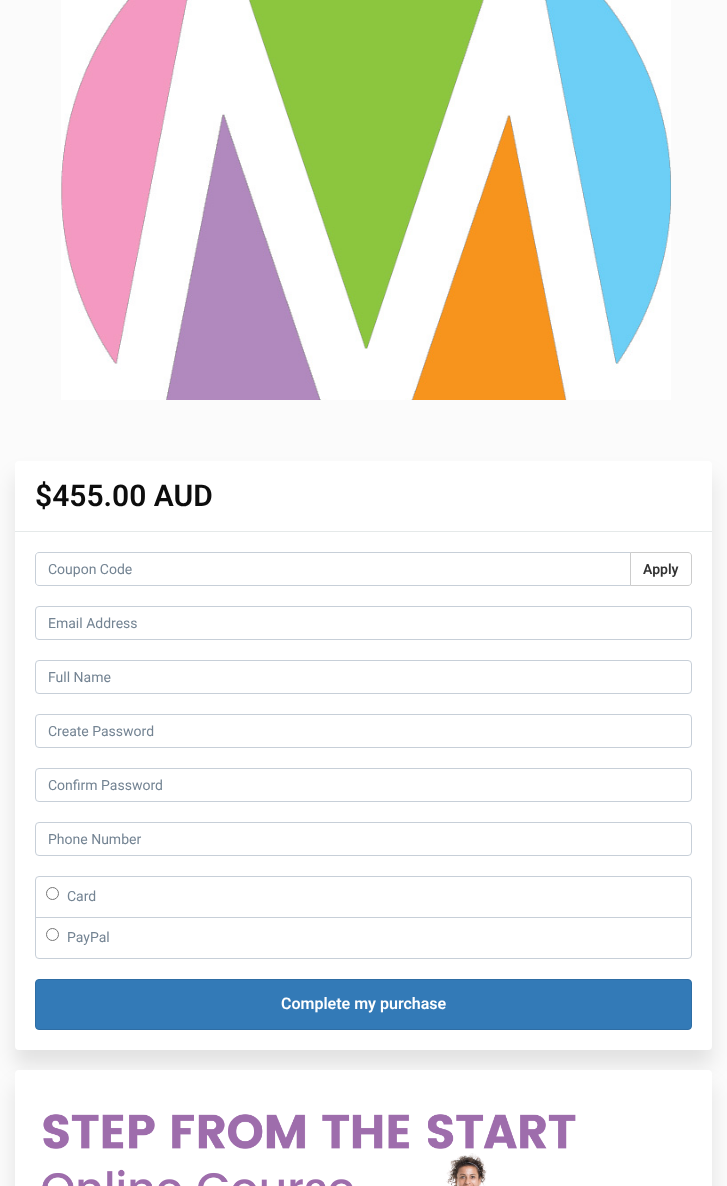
<svg xmlns="http://www.w3.org/2000/svg" width="727" height="1186" viewBox="0 0 727 1186">
  <rect width="100%" height="100%" fill="#fbfbfb"/>
  <image x="61" y="0" width="610" height="400" href="img/1.png"/>
  <rect x="15" y="476" width="697" height="589" rx="4" fill="#0000001a" filter="blur(10px)"/>
  <rect x="15" y="461" width="697" height="589" rx="4" fill="#fff"/>
  <path d="M15 531h697v1H15z" fill="#e5e9e9"/>
  <path d="M39 552.5H630.5V585.5H39C37 585.5 35.5 584 35.5 582V556C35.5 554 37 552.5 39 552.5Z" fill="none" stroke="#c7cfd8"/>
  <path d="M630.5 552.5H688C690 552.5 691.5 554 691.5 556V582C691.5 584 690 585.5 688 585.5H630.5Z" fill="#fff" stroke="#ccc"/>
  <rect x="35.5" y="606.5" width="656" height="33" rx="3.5" fill="none" stroke="#c7cfd8"/>
  <rect x="35.5" y="660.5" width="656" height="33" rx="3.5" fill="none" stroke="#c7cfd8"/>
  <rect x="35.5" y="714.5" width="656" height="33" rx="3.5" fill="none" stroke="#c7cfd8"/>
  <rect x="35.5" y="768.5" width="656" height="33" rx="3.5" fill="none" stroke="#c7cfd8"/>
  <rect x="35.5" y="822.5" width="656" height="33" rx="3.5" fill="none" stroke="#c7cfd8"/>
  <rect x="35.5" y="876.5" width="656" height="82" rx="3.5" fill="none" stroke="#c7cfd8"/>
  <path d="M36 917h655v1H36z" fill="#c7cfd8"/>
  <circle cx="52.5" cy="893.5" r="6" fill="none" stroke="#767676"/>
  <circle cx="52.5" cy="934.5" r="6" fill="none" stroke="#767676"/>
  <rect x="35.5" y="979.5" width="656" height="50" rx="3.5" fill="#337ab7" stroke="#2e6da4"/>
  <rect x="15" y="1085" width="697" height="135" rx="4" fill="#0000001a" filter="blur(10px)"/>
  <image x="15" y="1070" width="697" height="116" href="img/2.png"/>
  <text x="35" y="506" font-family="Roboto" font-size="30" font-weight="600" fill="#0d0d0d">$455.00 AUD</text>
  <text x="48" y="574" font-family="Roboto" font-size="14" fill="#748493">Coupon Code</text>
  <text x="643" y="574" font-family="Roboto" font-size="14" font-weight="600" fill="#333">Apply</text>
  <g font-family="Roboto" font-size="14" fill="#748493">
    <text x="48" y="628">Email Address</text>
    <text x="48" y="682">Full Name</text>
    <text x="48" y="736">Create Password</text>
    <text x="48" y="790">Confirm Password</text>
    <text x="48" y="844">Phone Number</text>
    <text x="67" y="901">Card</text>
    <text x="67" y="942">PayPal</text>
  </g>
  <text x="281" y="1009" font-family="Roboto" font-size="16" font-weight="600" fill="#fff">Complete my purchase</text>
</svg>
